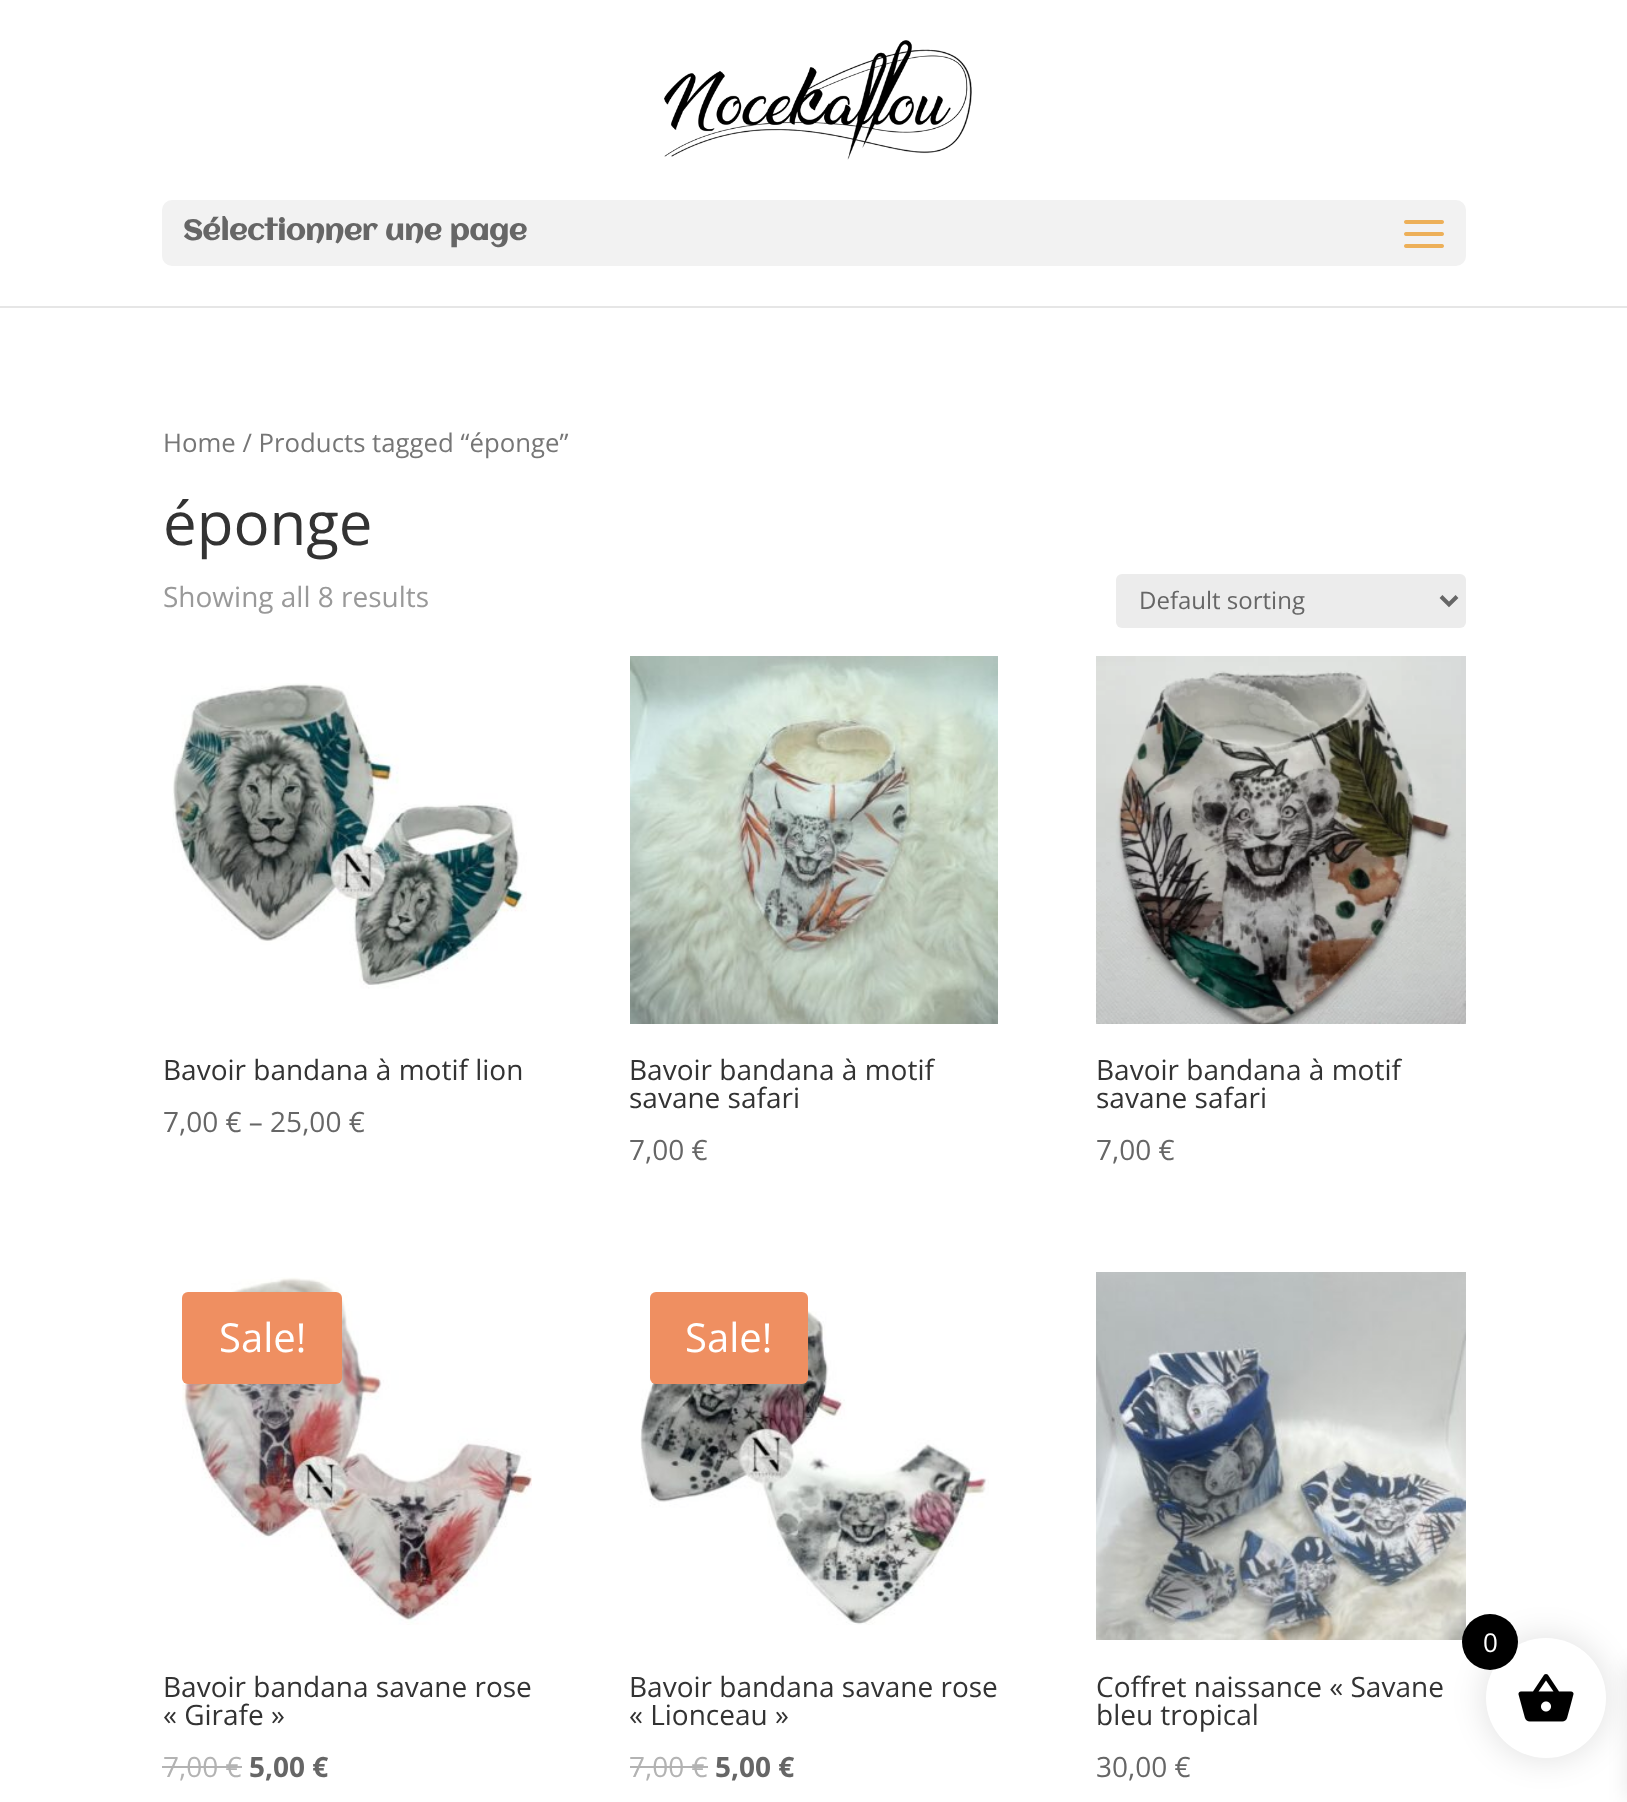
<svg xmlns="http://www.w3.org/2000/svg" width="1627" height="1802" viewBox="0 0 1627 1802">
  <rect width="100%" height="100%" fill="#fff"/>
  <path d="M0 306h1627v2H0z" fill="#e6e6e6"/>
  <image x="664" y="40" width="308" height="120" href="img/1.png"/>
  <rect x="162" y="200" width="1304" height="66" rx="10" fill="#f2f2f2"/>
  <image x="1404" y="220" width="40" height="28" href="img/2.png"/>
  <rect x="1116" y="574" width="350" height="54" rx="6" fill="#ececec"/>
  <path d="M1441 596.5L1449 604.5L1457 596.5" fill="none" stroke="#666" stroke-width="4"/>
  <image x="172" y="683" width="355" height="306" href="img/3.png"/>
  <image x="630" y="656" width="368" height="368" href="img/4.png"/>
  <image x="1096" y="656" width="370" height="368" href="img/5.png"/>
  <image x="182" y="1277" width="350" height="348" href="img/6.png"/>
  <rect x="182" y="1292" width="160" height="92" rx="6" fill="#ef8f61"/>
  <path d="M162 1766h80v2H162z" fill="#b3b3b3"/>
  <image x="640" y="1293" width="349" height="332" href="img/7.png"/>
  <rect x="650" y="1292" width="158" height="92" rx="6" fill="#ef8f61"/>
  <path d="M630 1766h78v2H630z" fill="#b3b3b3"/>
  <image x="1096" y="1272" width="370" height="368" href="img/8.png"/>
  <rect x="1482" y="1634" width="128" height="128" rx="64" fill="#0000001a" filter="blur(15px)"/>
  <path d="M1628 1664h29v136H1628z" fill="#0000001a" filter="blur(10px)"/>
  <circle cx="1546" cy="1698" r="60" fill="#fff"/>
  <circle cx="1490" cy="1642" r="28" fill="#000"/>
  <image x="1518" y="1674" width="56" height="48" href="img/9.png"/>
  <text x="183" y="240" font-family="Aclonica" font-size="28" font-weight="bold" fill="#666">Sélectionner une page</text>
  <text x="163" y="452" font-family="Open Sans" font-size="25.75" fill="#767676">Home / Products tagged “éponge”</text>
  <text x="163" y="545" font-family="Open Sans" font-size="60" fill="#333">éponge</text>
  <text x="163" y="607" font-family="Open Sans" font-size="28" fill="#999">Showing all 8 results</text>
  <text x="1139" y="609" font-family="Open Sans" font-size="24" fill="#666">Default sorting</text>
  <text x="163" y="1080" font-family="Open Sans" font-size="28" fill="#333">Bavoir bandana à motif lion</text>
  <text x="163" y="1132" font-family="Open Sans" font-size="28" fill="#666">7,00 € – 25,00 €</text>
  <g font-family="Open Sans" font-size="28" fill="#333">
    <text x="629" y="1080">Bavoir bandana à motif</text>
    <text x="629" y="1108">savane safari</text>
  </g>
  <text x="629" y="1160" font-family="Open Sans" font-size="28" fill="#666">7,00 €</text>
  <g font-family="Open Sans" font-size="28" fill="#333">
    <text x="1096" y="1080">Bavoir bandana à motif</text>
    <text x="1096" y="1108">savane safari</text>
  </g>
  <text x="1096" y="1160" font-family="Open Sans" font-size="28" fill="#666">7,00 €</text>
  <text x="219" y="1352" font-family="Open Sans" font-size="40" fill="#fff">Sale!</text>
  <g font-family="Open Sans" font-size="28" fill="#333">
    <text x="163" y="1697">Bavoir bandana savane rose</text>
    <text x="163" y="1725">« Girafe »</text>
  </g>
  <text x="163" y="1777" font-family="Open Sans" font-size="28" fill="#b3b3b3">7,00 €</text>
  <text x="249" y="1777" font-family="Open Sans" font-size="28" font-weight="bold" fill="#666">5,00 €</text>
  <text x="685" y="1352" font-family="Open Sans" font-size="40" fill="#fff">Sale!</text>
  <g font-family="Open Sans" font-size="28" fill="#333">
    <text x="629" y="1697">Bavoir bandana savane rose</text>
    <text x="629" y="1725">« Lionceau »</text>
  </g>
  <text x="629" y="1777" font-family="Open Sans" font-size="28" fill="#b3b3b3">7,00 €</text>
  <text x="715" y="1777" font-family="Open Sans" font-size="28" font-weight="bold" fill="#666">5,00 €</text>
  <g font-family="Open Sans" font-size="28" fill="#333">
    <text x="1096" y="1697">Coffret naissance « Savane</text>
    <text x="1096" y="1725">bleu tropical</text>
  </g>
  <text x="1096" y="1777" font-family="Open Sans" font-size="28" fill="#666">30,00 €</text>
  <text x="1483" y="1652" font-family="Open Sans" font-size="26" fill="#fff">0</text>
</svg>
